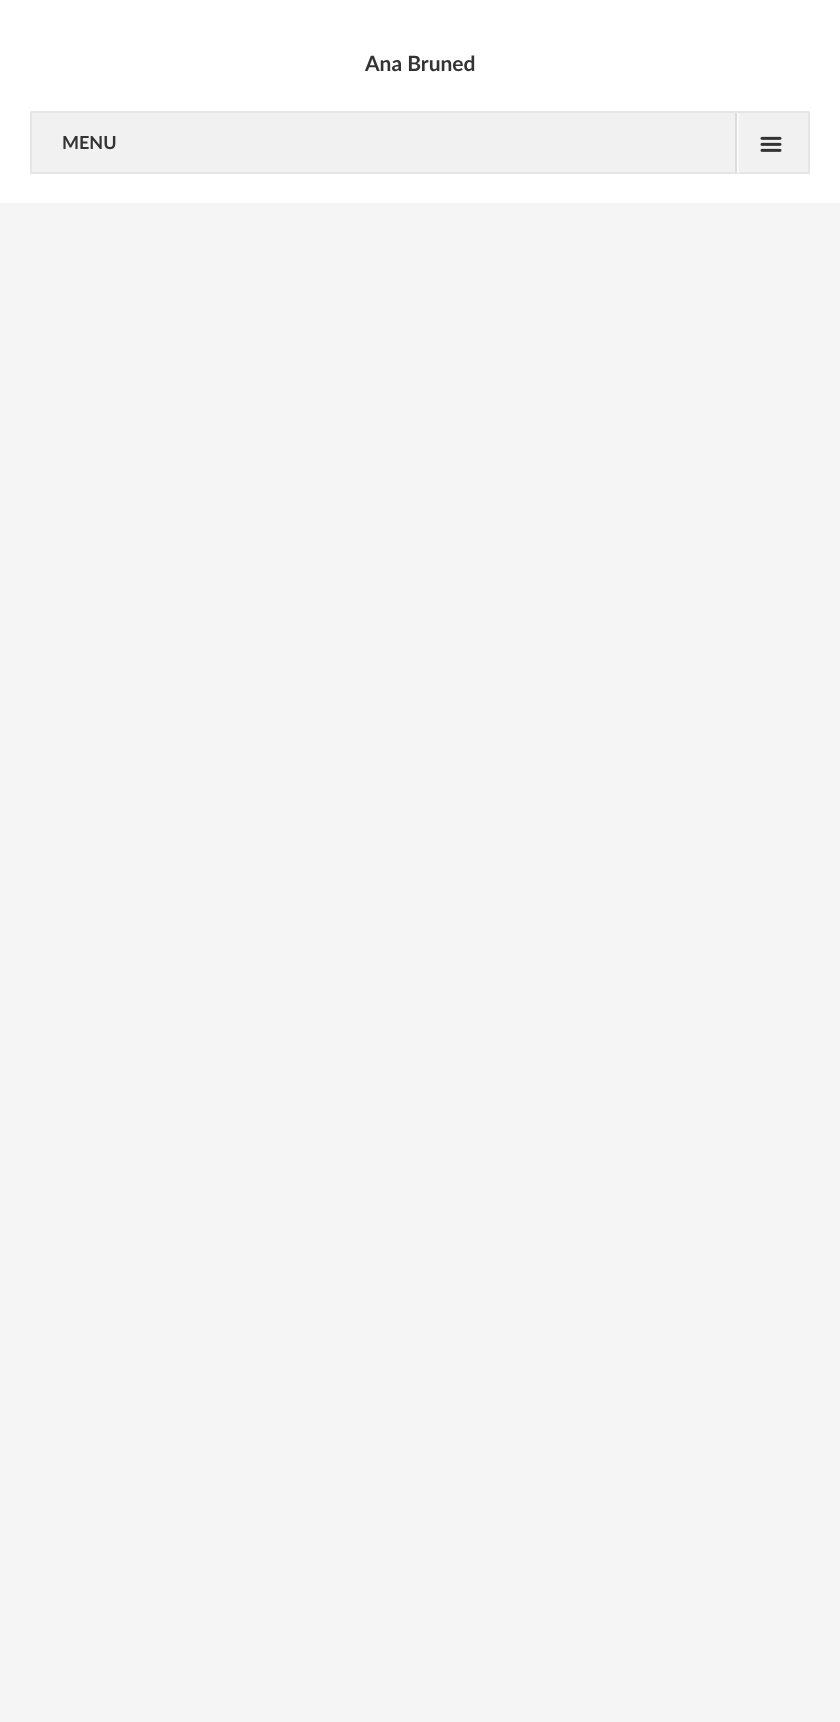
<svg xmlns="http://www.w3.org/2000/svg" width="840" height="1722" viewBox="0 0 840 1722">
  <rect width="100%" height="100%" fill="#f5f5f5"/>
  <path d="M0 0h840v203H0z" fill="#fff"/>
  <rect x="31" y="112" width="778" height="61" rx="0.5" fill="#f1f1f1" stroke="#e5e5e5" stroke-width="2"/>
  <path d="M737 113h2v60H737z" fill="#ffffff99"/>
  <path d="M735 113h2v60H735z" fill="#ddd"/>
  <image x="760" y="136" width="22" height="16" href="img/1.png"/>
  <text x="365" y="71" font-family="Lato" font-size="21" font-weight="bold" fill="#333">Ana Bruned</text>
  <text x="62" y="149" font-family="Lato" font-size="18" font-weight="bold" fill="#333">MENU</text>
</svg>
